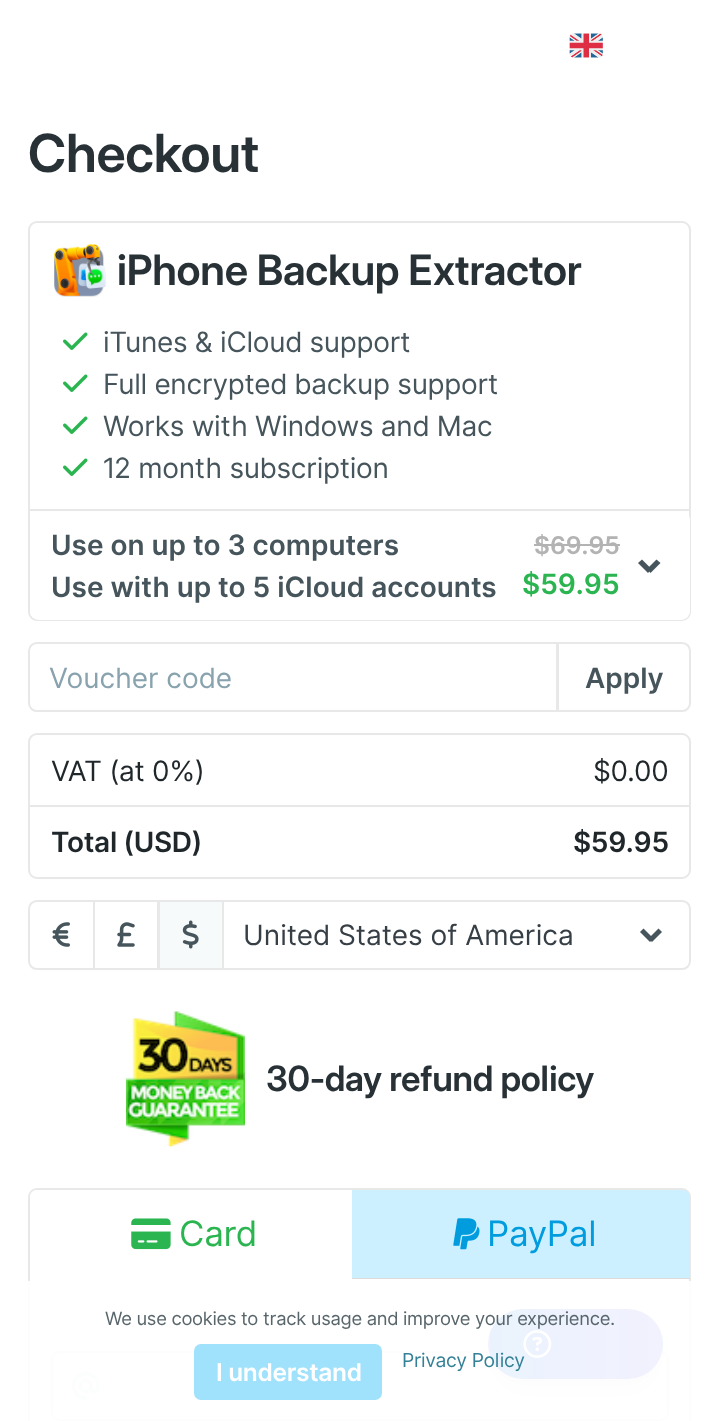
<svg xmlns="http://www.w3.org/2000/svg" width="719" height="1421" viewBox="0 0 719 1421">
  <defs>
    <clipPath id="clip1"><rect x="488" y="1309" width="175" height="70" rx="35"/></clipPath>
    <linearGradient id="g1" gradientUnits="userSpaceOnUse" x1="319" y1="1344" x2="490" y2="1344"><stop offset="0" stop-color="#2c84ea"/><stop offset="1" stop-color="#7d72f4"/></linearGradient>
    <linearGradient id="g2" gradientUnits="userSpaceOnUse" x1="490" y1="1344" x2="662" y2="1344"><stop offset="0" stop-color="#2c84ea"/><stop offset="1" stop-color="#7d72f4"/></linearGradient>
    <linearGradient id="g3" gradientUnits="userSpaceOnUse" x1="662" y1="1344" x2="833" y2="1344"><stop offset="0" stop-color="#2c84ea"/><stop offset="1" stop-color="#7d72f4"/></linearGradient>
  </defs>
  <rect width="100%" height="100%" fill="#fff"/>
  <image x="569" y="33" width="34" height="25" href="img/1.png"/>
  <rect x="29" y="222" width="661" height="398" rx="8" fill="none" stroke="#e8e8e8" stroke-width="2"/>
  <image x="54" y="244" width="53" height="53" href="img/2.png"/>
  <image x="63" y="332" width="25" height="18" href="img/3.png"/>
  <image x="63" y="374" width="25" height="18" href="img/3.png"/>
  <image x="63" y="416" width="25" height="18" href="img/3.png"/>
  <image x="63" y="458" width="25" height="18" href="img/3.png"/>
  <path d="M30 509h660v2H30z" fill="#e8e8e8"/>
  <rect x="30" y="511" width="660" height="109" rx="9" fill="#fff"/>
  <path d="M534 544h86v2H534z" fill="#b3b3b3"/>
  <path d="M647 569L656.5 559.5L660.5 563L650.5 573Z" fill="#46555b"/>
  <path d="M638 563L642 559.5L651.5 569L648 573Z" fill="#46555b"/>
  <path d="M37 643H557V711H37C32.5 711 29 707.5 29 703V651C29 646.5 32.5 643 37 643Z" fill="none" stroke="#e8e8e8" stroke-width="2"/>
  <path d="M558 643H682C686.5 643 690 646.5 690 651V703C690 707.5 686.5 711 682 711H558Z" fill="#fff" stroke="#e8e8e8" stroke-width="2"/>
  <rect x="29" y="734" width="661" height="144" rx="8" fill="none" stroke="#e8e8e8" stroke-width="2"/>
  <path d="M30 805h660v2H30z" fill="#e8e8e8"/>
  <path d="M37 901H94V969H37C32.5 969 29 965.5 29 961V909C29 904.5 32.5 901 37 901Z" fill="none" stroke="#e8e8e8" stroke-width="2"/>
  <image x="52" y="922" width="18" height="25" href="img/4.png"/>
  <path d="M94 901h64v68H94z" fill="none" stroke="#e8e8e8" stroke-width="2"/>
  <image x="117" y="922" width="18" height="25" href="img/5.png"/>
  <path d="M159 901h64v68H159z" fill="#f7fafb" stroke="#e8e8e8" stroke-width="2"/>
  <image x="182" y="920" width="17" height="29" href="img/6.png"/>
  <path d="M223 901H682C686.5 901 690 904.5 690 909V961C690 965.5 686.5 969 682 969H223Z" fill="#fff" stroke="#e8e8e8" stroke-width="2"/>
  <path d="M648.5 938.5L658.5 928.5L662 932L652 942Z" fill="#46555b"/>
  <path d="M640 932L643.5 928.5L653.5 938.5L650 942Z" fill="#46555b"/>
  <image x="126" y="1011" width="119" height="136" href="img/7.png"/>
  <rect x="29" y="1189" width="661" height="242" rx="8" fill="none" stroke="#e8e8e8" stroke-width="2"/>
  <path d="M352 1278h338v1H352z" fill="#dbdbdb"/>
  <path d="M37 1190H352V1278H30V1197C30 1193 33 1190 37 1190Z" fill="#fff"/>
  <image x="131" y="1218" width="40" height="32" href="img/8.png"/>
  <path d="M352 1190H683C687 1190 690 1193 690 1197V1278H352Z" fill="#ccf0ff"/>
  <image x="453" y="1218" width="27" height="32" href="img/9.png"/>
  <rect x="52" y="1352" width="616" height="68" rx="8" fill="none" stroke="#e8e8e8" stroke-width="2"/>
  <image x="71" y="1372" width="29" height="28" href="img/10.png"/>
  <rect x="495" y="1323" width="161" height="56" rx="28" fill="#0000001a" filter="blur(5px)"/>
  <rect x="494" y="1332" width="164" height="59" rx="29.5" fill="#0000001a" filter="blur(13px)"/>
  <g clip-path="url(#clip1)">
    <path d="M488 1332h2v24H488z" fill="url(#g1)"/>
    <path d="M490 1309h172v70H490z" fill="url(#g2)"/>
    <path d="M662 1336h1v16H662z" fill="url(#g3)"/>
  </g>
  <image x="523" y="1330" width="29" height="28" href="img/11.png"/>
  <path d="M28 1281h663v140H28z" fill="#ffffffe6"/>
  <rect x="194" y="1344" width="188" height="56" rx="7" fill="#a0e1fc"/>
  <text x="28" y="172" font-family="Inter" font-size="52.5" font-weight="600" letter-spacing="-0.3" fill="#283236">Checkout</text>
  <text x="117" y="285" font-family="Inter" font-size="42" font-weight="600" letter-spacing="-0.3" fill="#283236">iPhone Backup Extractor</text>
  <g font-family="Inter" font-size="28" letter-spacing="-0.3" fill="#46555b">
    <text x="103" y="352">iTunes &amp; iCloud support</text>
    <text x="103" y="394">Full encrypted backup support</text>
    <text x="103" y="436">Works with Windows and Mac</text>
    <text x="103" y="478">12 month subscription</text>
  </g>
  <g font-family="'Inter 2'" font-size="28" font-weight="600" fill="#46555b">
    <text x="51" y="555">Use on up to 3 computers</text>
    <text x="51" y="597">Use with up to 5 iCloud accounts</text>
  </g>
  <text x="534" y="554" font-family="'Inter 2'" font-size="24.5" font-weight="600" fill="#b3b3b3">$69.95</text>
  <text x="522" y="594" font-family="'Inter 2'" font-size="28" font-weight="600" fill="#2bb551">$59.95</text>
  <text x="49" y="688" font-family="Inter" font-size="28" fill="#88a2ae">Voucher code</text>
  <text x="585" y="688" font-family="'Inter 2'" font-size="28" font-weight="600" fill="#46555b">Apply</text>
  <g font-family="Inter" font-size="28" letter-spacing="-0.3" fill="#1f272b">
    <text x="51" y="781">VAT (at 0%)</text>
    <text x="593" y="781">$0.00</text>
  </g>
  <g font-family="'Inter 2'" font-size="28" font-weight="600" letter-spacing="-0.3" fill="#1f272b">
    <text x="51" y="852">Total (USD)</text>
    <text x="573" y="852">$59.95</text>
  </g>
  <text x="243" y="945" font-family="Inter" font-size="28" fill="#373f46">United States of America</text>
  <text x="266" y="1091" font-family="Inter" font-size="35" font-weight="600" letter-spacing="-0.3" fill="#283236">30-day refund policy</text>
  <text x="179" y="1246" font-family="Inter" font-size="35" letter-spacing="-0.3" fill="#2bb551">Card</text>
  <text x="487" y="1246" font-family="Inter" font-size="35" letter-spacing="-0.3" fill="#009cde">PayPal</text>
  <text x="105" y="1325" font-family="Inter" font-size="18.4" letter-spacing="-0.3" fill="#58666b">We use cookies to track usage and improve your experience.</text>
  <text x="216" y="1381" font-family="'Inter 2'" font-size="24.5" font-weight="600" letter-spacing="-0.3" fill="#fff">I understand</text>
  <text x="402" y="1367" font-family="Inter" font-size="19.25" letter-spacing="-0.3" fill="#348197">Privacy Policy</text>
</svg>
